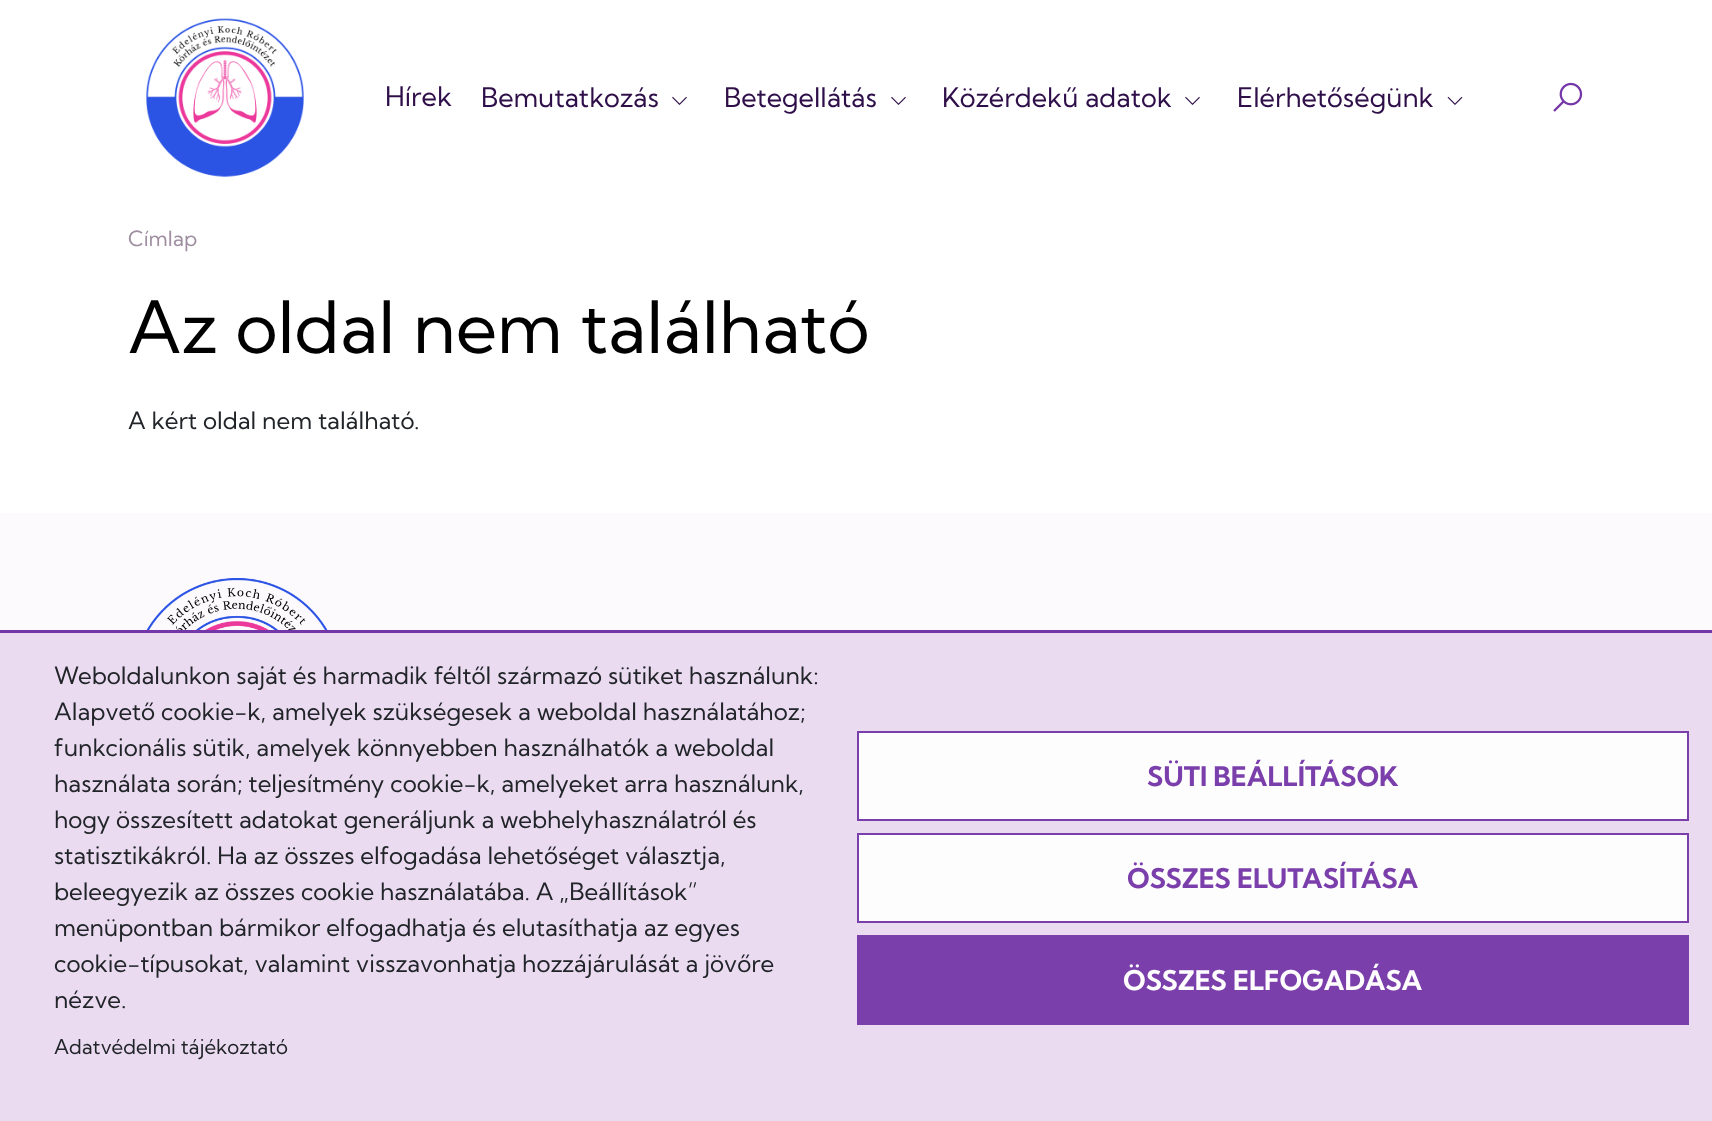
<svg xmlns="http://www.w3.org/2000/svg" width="1712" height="1121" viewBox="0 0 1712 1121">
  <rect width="100%" height="100%" fill="#fff"/>
  <image x="146" y="18" width="158" height="159" href="img/1.png"/>
  <image x="672" y="96" width="15" height="9" href="img/2.png"/>
  <image x="891" y="96" width="15" height="9" href="img/2.png"/>
  <image x="1185" y="96" width="15" height="9" href="img/2.png"/>
  <image x="1447" y="96" width="16" height="9" href="img/3.png"/>
  <image x="1553" y="82" width="30" height="30" href="img/4.png"/>
  <path d="M0 513h1712v117H0z" fill="#fdfafe"/>
  <image x="146" y="578" width="182" height="52" href="img/5.png"/>
  <path d="M0 633h1712v488H0z" fill="#ebdbf0"/>
  <path d="M0 630h1712v3H0z" fill="#7537a8"/>
  <path d="M858 732h830v88H858z" fill="#fefdfe" stroke="#7b3fac" stroke-width="2"/>
  <path d="M858 834h830v88H858z" fill="#fefdfe" stroke="#7b3fac" stroke-width="2"/>
  <path d="M857 935h832v90H857z" fill="#7b3fac"/>
  <g font-family="Kumbh Sans" font-size="27" fill="#2f0f49">
    <text x="385" y="106">Hírek</text>
    <text x="481" y="107">Bemutatkozás</text>
    <text x="724" y="107">Betegellátás</text>
    <text x="942" y="107">Közérdekű adatok</text>
    <text x="1237" y="107">Elérhetőségünk</text>
  </g>
  <text x="128" y="246" font-family="Kumbh Sans" font-size="21" fill="#9e8ea0">Címlap</text>
  <text x="128" y="353" font-family="Kumbh Sans" font-size="72" fill="#000">Az oldal nem található</text>
  <g font-family="Kumbh Sans" font-size="24" fill="#212529">
    <text x="128" y="429">A kért oldal nem található.</text>
    <text x="54" y="684">Weboldalunkon saját és harmadik féltől származó sütiket használunk:</text>
    <text x="54" y="720">Alapvető cookie-k, amelyek szükségesek a weboldal használatához;</text>
    <text x="54" y="756">funkcionális sütik, amelyek könnyebben használhatók a weboldal</text>
    <text x="54" y="792">használata során; teljesítmény cookie-k, amelyeket arra használunk,</text>
    <text x="54" y="828">hogy összesített adatokat generáljunk a webhelyhasználatról és</text>
    <text x="54" y="864">statisztikákról. Ha az összes elfogadása lehetőséget választja,</text>
    <text x="54" y="900">beleegyezik az összes cookie használatába. A „Beállítások”</text>
    <text x="54" y="936">menüpontban bármikor elfogadhatja és elutasíthatja az egyes</text>
    <text x="54" y="972">cookie-típusokat, valamint visszavonhatja hozzájárulását a jövőre</text>
    <text x="54" y="1008">nézve.</text>
  </g>
  <text x="54" y="1054" font-family="Kumbh Sans" font-size="20.4" fill="#212529">Adatvédelmi tájékoztató</text>
  <g font-family="Kumbh Sans" font-size="27" font-weight="bold" fill="#7b3fac">
    <text x="1147" y="786">SÜTI BEÁLLÍTÁSOK</text>
    <text x="1127" y="888">ÖSSZES ELUTASÍTÁSA</text>
  </g>
  <text x="1123" y="990" font-family="Kumbh Sans" font-size="27" font-weight="bold" fill="#fefdfe">ÖSSZES ELFOGADÁSA</text>
</svg>
